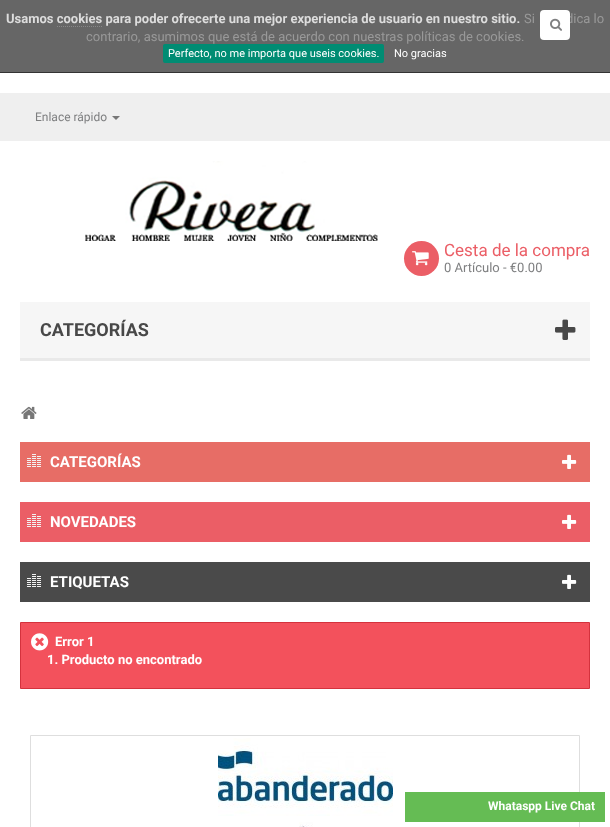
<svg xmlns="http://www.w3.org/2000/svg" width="610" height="827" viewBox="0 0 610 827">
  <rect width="100%" height="100%" fill="#fff"/>
  <path d="M0 0h610v72H0z" fill="#666"/>
  <path d="M0 72h610v1H0z" fill="#333"/>
  <path d="M57 26.5H102" fill="none" stroke="#888" stroke-dasharray="1 1"/>
  <rect x="163" y="44" width="221" height="19" rx="2" fill="#008c73"/>
  <path d="M0 93h610v48H0z" fill="#efefef"/>
  <path d="M112 116H120L116 120Z" fill="#777"/>
  <image x="85" y="161" width="293" height="80" href="img/2.png"/>
  <circle cx="421.5" cy="258.5" r="17.5" fill="#eb5e66"/>
  <image x="412" y="251" width="17" height="15" href="img/3.png"/>
  <path d="M20 302h570v56H20z" fill="#f6f6f6"/>
  <path d="M20 358h570v3H20z" fill="#e9e9e9"/>
  <image x="555" y="319" width="21" height="21" href="img/4.png"/>
  <image x="21" y="406" width="16" height="13" href="img/5.png"/>
  <path d="M20 442h570v40H20z" fill="#e76d66"/>
  <image x="27" y="454" width="14" height="13" href="img/6.png"/>
  <image x="562" y="454" width="15" height="15" href="img/7.png"/>
  <path d="M20 502h570v40H20z" fill="#eb5e66"/>
  <image x="27" y="514" width="14" height="13" href="img/8.png"/>
  <image x="562" y="514" width="15" height="15" href="img/9.png"/>
  <path d="M20 562h570v40H20z" fill="#4a4a4a"/>
  <image x="27" y="574" width="14" height="13" href="img/10.png"/>
  <image x="562" y="574" width="15" height="15" href="img/11.png"/>
  <path d="M20.5 622.5h569v66H20.5z" fill="#f3515c" stroke="#d4323d"/>
  <image x="31" y="633" width="18" height="18" href="img/12.png"/>
  <path d="M30.5 735.5h549v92H30.5z" fill="none" stroke="#dedede"/>
  <image x="218" y="738" width="175" height="78" href="img/13.png"/>
  <image x="299" y="822" width="14" height="5" href="img/14.png"/>
  <path d="M405 792h200v30H405z" fill="#65bc54"/>
  <text x="6" y="23" font-family="Roboto" font-size="13" font-weight="bold" fill="#ddd">Usamos cookies para poder ofrecerte una mejor experiencia de usuario en nuestro sitio.</text>
  <g font-family="Roboto" font-size="13" fill="#999">
    <text x="524" y="23">Si</text>
    <text x="566" y="23">dica lo</text>
    <text x="86" y="41">contrario, asumimos que está de acuerdo con nuestras políticas de cookies.</text>
  </g>
  <g font-family="Roboto" font-size="11" fill="#fff">
    <text x="168" y="57">Perfecto, no me importa que useis cookies.</text>
    <text x="394" y="57">No gracias</text>
  </g>
  <rect x="540" y="10" width="30" height="30" rx="4" fill="#fff"/>
  <image x="550" y="18" width="12" height="13" href="img/1.png"/>
  <text x="35" y="121" font-family="Roboto" font-size="12" fill="#7e7f80">Enlace rápido</text>
  <text x="444" y="256" font-family="Roboto" font-size="17" fill="#eb5e66">Cesta de la compra</text>
  <text x="444" y="272" font-family="Roboto" font-size="13" fill="#7e7f80">0 Artículo - €0.00</text>
  <text x="40" y="336" font-family="Roboto" font-size="18" font-weight="bold" fill="#484848">CATEGORÍAS</text>
  <g font-family="Roboto" font-size="15" font-weight="bold" fill="#fff">
    <text x="50" y="467">CATEGORÍAS</text>
    <text x="50" y="527">NOVEDADES</text>
    <text x="50" y="587">ETIQUETAS</text>
  </g>
  <g font-family="Roboto" font-size="13" font-weight="bold" fill="#fff">
    <text x="55" y="646">Error 1</text>
    <text x="47" y="664">1. Producto no encontrado</text>
  </g>
  <text x="488" y="810" font-family="Roboto" font-size="12" font-weight="bold" fill="#fff">Whataspp Live Chat</text>
</svg>
